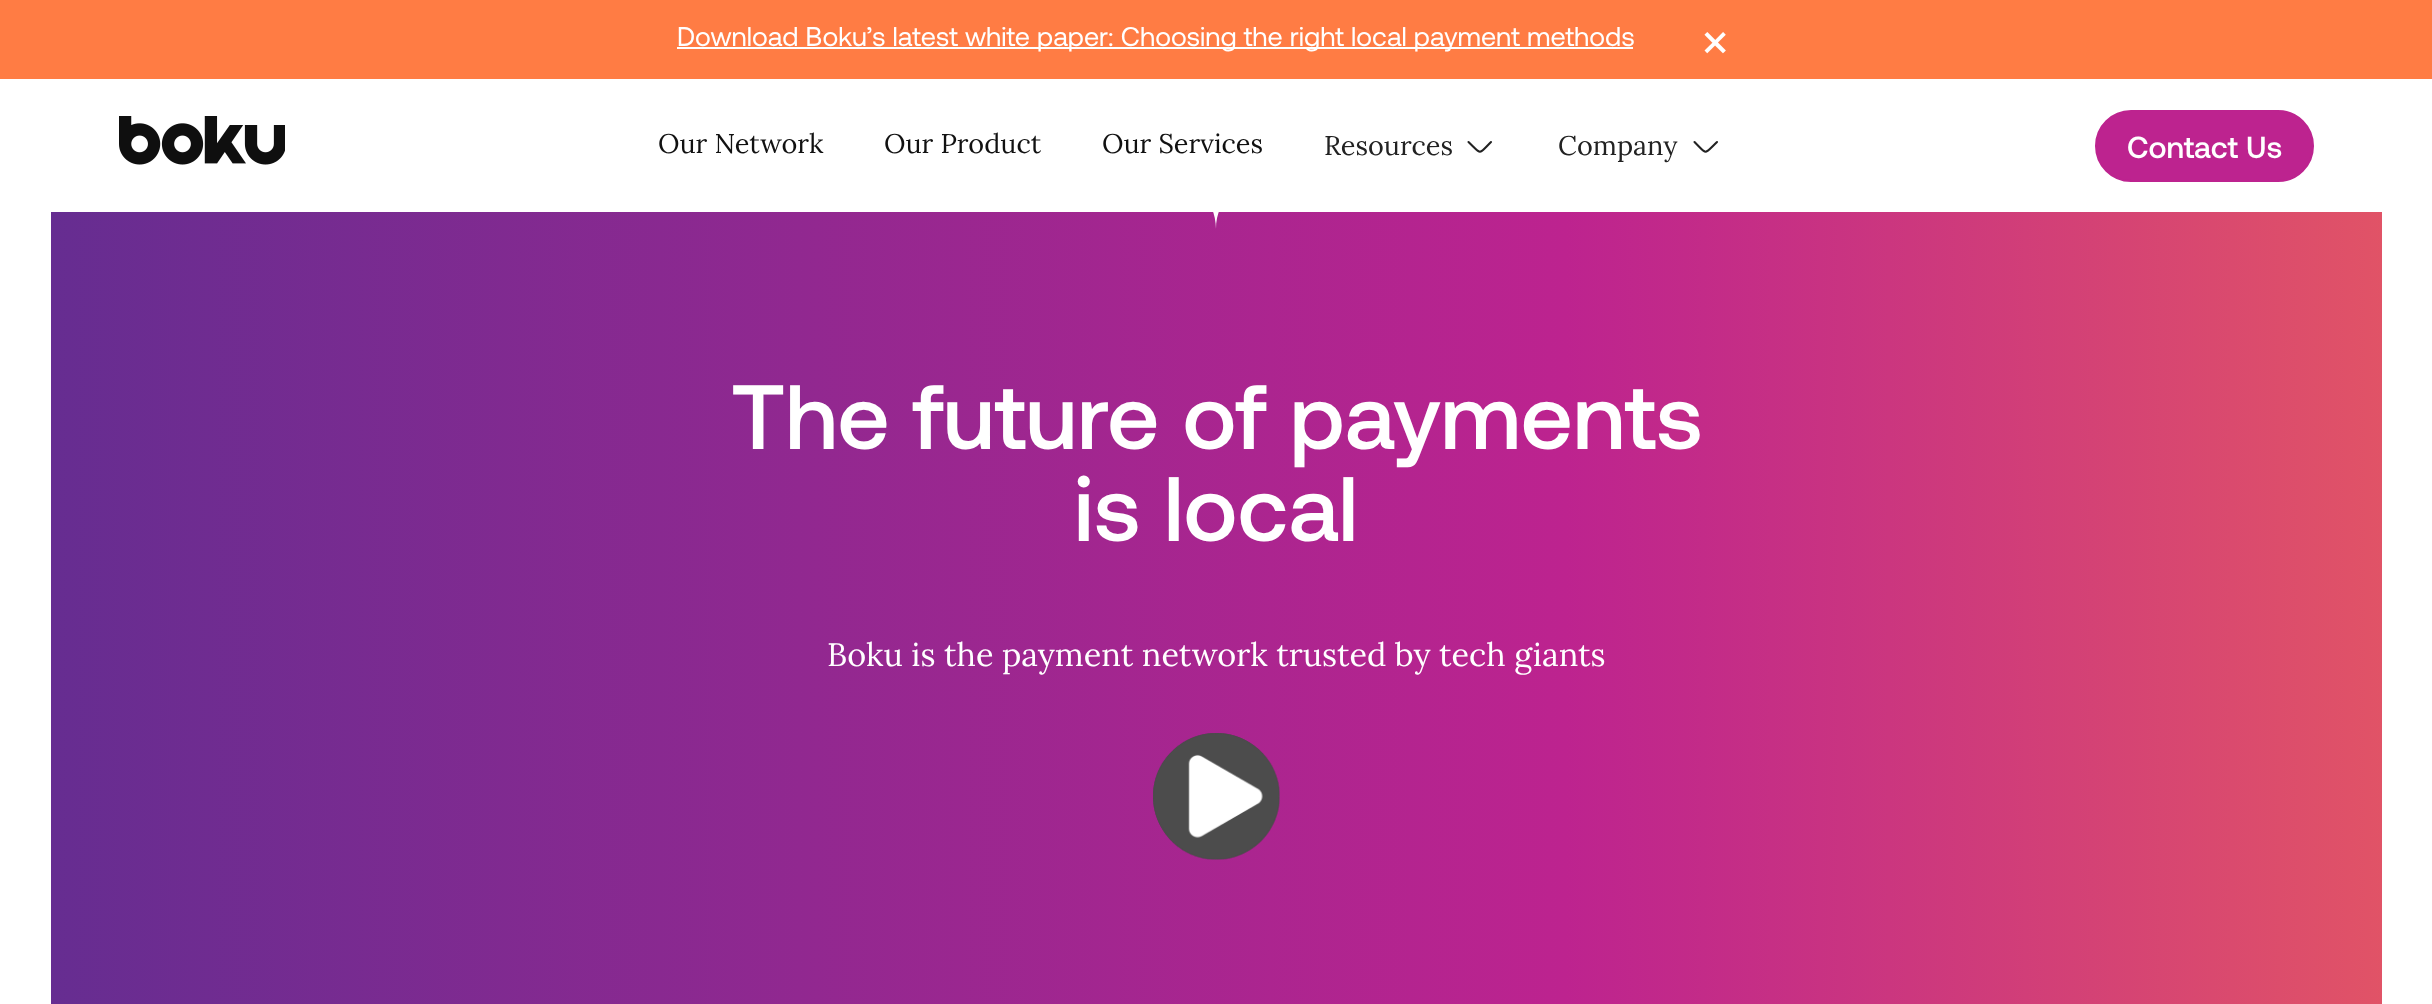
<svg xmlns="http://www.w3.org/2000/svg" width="2432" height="1004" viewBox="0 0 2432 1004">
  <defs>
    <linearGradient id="g1" gradientUnits="userSpaceOnUse" x1="51" y1="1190" x2="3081" y2="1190"><stop offset="0" stop-color="#662d91"/><stop offset="0.5" stop-color="#bd238f"/><stop offset="1" stop-color="#ff7c44"/></linearGradient>
  </defs>
  <rect width="100%" height="100%" fill="#fff"/>
  <path d="M0 0h2432v79H0z" fill="#ff7c44"/>
  <path d="M677 47h956v2H677z" fill="#fff"/>
  <image x="119" y="116" width="166" height="49" href="img/1.png"/>
  <path d="M1491 142C1478 155 1482 155 1468.5 142" fill="none" stroke="#222" stroke-width="2.1" stroke-linecap="round" stroke-linejoin="round"/>
  <path d="M1717 142C1703.5 155 1707.5 155 1694.5 142" fill="none" stroke="#222" stroke-width="2.1" stroke-linecap="round" stroke-linejoin="round"/>
  <rect x="2096" y="111" width="217" height="70" rx="35" fill="#bd238f" stroke="#bd238f" stroke-width="2"/>
  <path d="M51 212h2331v792H51z" fill="url(#g1)"/>
  <path d="M1216 229C1216 199 1241 175 1270 175H1162C1192 175 1216 199 1216 229Z" fill="#fff" fill-rule="evenodd"/>
  <image x="1153" y="733" width="127" height="127" href="img/2.png"/>
  <image x="1153" y="733" width="127" height="127" href="img/3.png"/>
  <text x="677" y="46" font-family="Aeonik" font-size="27.05" fill="#fff">Download Boku’s latest white paper: Choosing the right local payment methods</text>
  <text x="1701" y="58" font-family="Aeonik" font-size="54" fill="#fff">×</text>
  <g font-family="Lora" font-size="27.05" fill="#111">
    <text x="658" y="153">Our Network</text>
    <text x="884" y="153">Our Product</text>
    <text x="1102" y="153">Our Services</text>
  </g>
  <g font-family="Lora" font-size="27.05" fill="#222">
    <text x="1324" y="155">Resources</text>
    <text x="1558" y="155">Company</text>
  </g>
  <text x="2127" y="158" font-family="Aeonik" font-size="30.5" font-weight="500" fill="#fff">Contact Us</text>
  <g font-family="Aeonik" font-size="91.25" font-weight="500" fill="#fff">
    <text x="731" y="449">The future of payments</text>
    <text x="1074" y="541">is local</text>
  </g>
  <text x="827" y="666" font-family="Lora" font-size="32.4" fill="#fff">Boku is the payment network trusted by tech giants</text>
</svg>
